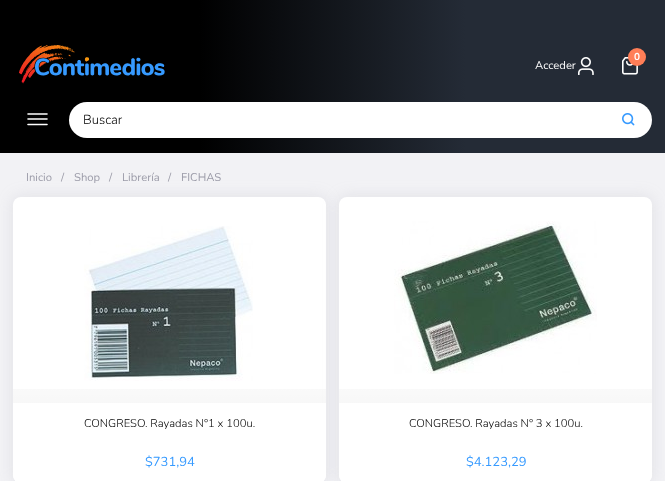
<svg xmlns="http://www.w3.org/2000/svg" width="665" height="481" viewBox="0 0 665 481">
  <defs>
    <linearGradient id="g1" gradientUnits="userSpaceOnUse" x1="0" y1="77" x2="665" y2="76"><stop offset="0.3" stop-color="#000"/><stop offset="0.7" stop-color="#242b36"/></linearGradient>
    <linearGradient id="g2" gradientUnits="userSpaceOnUse" x1="170" y1="352" x2="170" y2="403"><stop offset="0" stop-color="#000" stop-opacity="0"/><stop offset="1" stop-color="#000" stop-opacity="0.03"/></linearGradient>
    <linearGradient id="g3" gradientUnits="userSpaceOnUse" x1="496" y1="352" x2="496" y2="403"><stop offset="0" stop-color="#000" stop-opacity="0"/><stop offset="1" stop-color="#000" stop-opacity="0.03"/></linearGradient>
  </defs>
  <rect width="100%" height="100%" fill="#f2f2f5"/>
  <path d="M0 0h665v153H0z" fill="url(#g1)"/>
  <image x="19" y="45" width="146" height="39" href="img/1.png"/>
  <image x="622" y="57" width="16" height="18" href="img/2.png"/>
  <circle cx="637" cy="57" r="9" fill="#ff7e57"/>
  <image x="578" y="57" width="16" height="18" href="img/3.png"/>
  <path d="M28 114H47M28 119H47M28 124.5H47" fill="none" stroke="#fff" stroke-width="1.6" stroke-linecap="round"/>
  <rect x="69" y="102" width="583" height="36" rx="18" fill="#fff"/>
  <image x="622" y="113" width="13" height="13" href="img/4.png"/>
  <rect x="13" y="197" width="313" height="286" rx="8" fill="#9b9ba833" filter="blur(8px)"/>
  <rect x="13" y="197" width="313" height="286" rx="8" fill="#fff"/>
  <image x="84" y="226" width="169" height="155" href="img/5.png"/>
  <rect x="339" y="197" width="313" height="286" rx="8" fill="#9b9ba833" filter="blur(8px)"/>
  <path d="M13 389h313v14H13z" fill="url(#g2)"/>
  <path d="M13 403H326V475C326 479.5 322.5 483 318 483H21C16.5 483 13 479.5 13 475Z" fill="#fff"/>
  <rect x="339" y="197" width="313" height="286" rx="8" fill="#fff"/>
  <image x="394" y="221" width="203" height="153" href="img/6.png"/>
  <path d="M339 389h313v14H339z" fill="url(#g3)"/>
  <path d="M339 403H652V475C652 479.5 648.5 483 644 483H347C342.5 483 339 479.5 339 475Z" fill="#fff"/>
  <text x="634" y="60" font-family="Nunito" font-size="10" font-weight="bold" fill="#fff">0</text>
  <text x="535" y="69" font-family="Nunito" font-size="11.25" fill="#fff">Acceder</text>
  <text x="83" y="124" font-family="Nunito" font-size="13" font-weight="300" fill="#000">Buscar</text>
  <g font-family="Nunito" font-size="11.25" fill="#9b9ba8">
    <text x="26" y="181">Inicio</text>
    <text x="61" y="181">/</text>
    <text x="74" y="181">Shop</text>
    <text x="109" y="181">/</text>
    <text x="122" y="181">Librería</text>
    <text x="168" y="181">/</text>
    <text x="181" y="181">FICHAS</text>
  </g>
  <text x="84" y="427" font-family="Nunito" font-size="11.25" font-weight="300" fill="#000">CONGRESO. Rayadas N°1 x 100u.</text>
  <text x="145" y="466" font-family="Nunito" font-size="13" fill="#369aff">$731,94</text>
  <text x="409" y="427" font-family="Nunito" font-size="11.25" font-weight="300" fill="#000">CONGRESO. Rayadas N° 3 x 100u.</text>
  <text x="466" y="466" font-family="Nunito" font-size="13" fill="#369aff">$4.123,29</text>
</svg>
